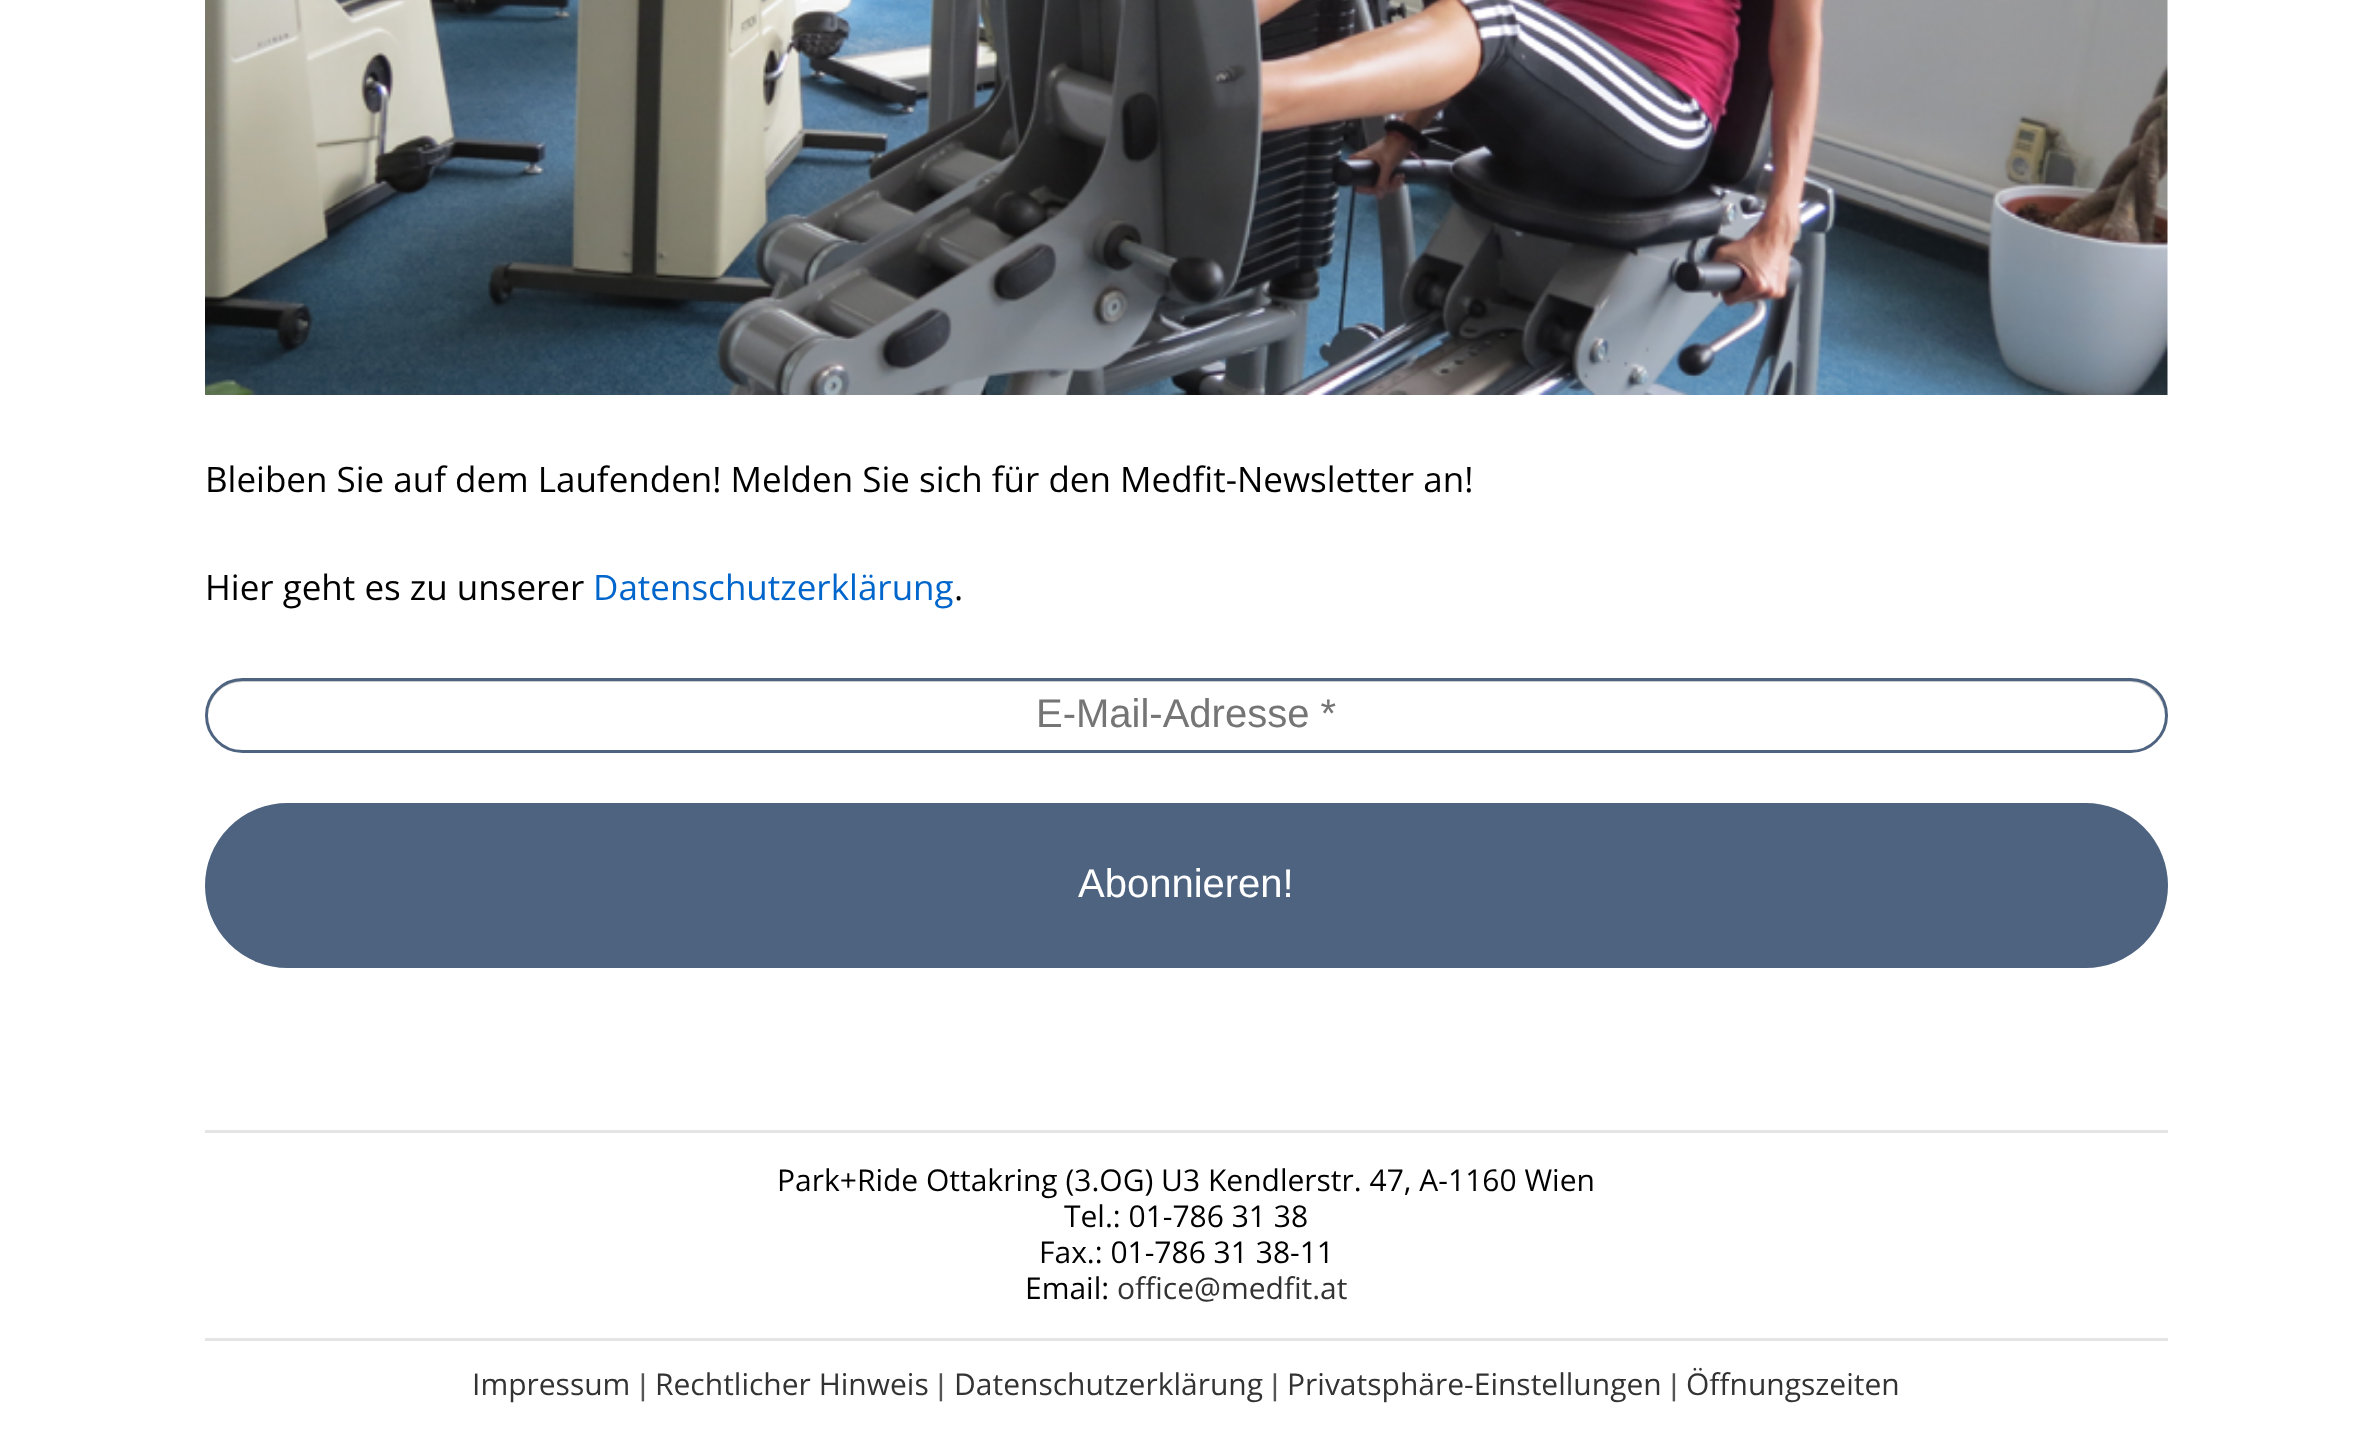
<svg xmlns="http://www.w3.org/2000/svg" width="2371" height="1434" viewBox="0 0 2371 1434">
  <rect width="100%" height="100%" fill="#fff"/>
  <image x="205" y="0" width="1963" height="395" href="img/1.png"/>
  <path d="M242 682H2130C2149 682 2164 697 2165 716C2166 697 2150 680 2130 680H243C223 680 207 697 208 716C209 697 223 682 242 682Z" fill="#ccc"/>
  <rect x="206.5" y="679.5" width="1960" height="72" rx="36" fill="none" stroke="#4e6380" stroke-width="3"/>
  <rect x="206.5" y="804.5" width="1960" height="162" rx="81" fill="#4e6380" stroke="#4e6380" stroke-width="3"/>
  <path d="M205 1130h1963v3H205z" fill="#e4e4e4"/>
  <path d="M205 1338h1963v3H205z" fill="#e4e4e4"/>
  <g font-family="Open Sans" font-size="35" fill="#000">
    <text x="205" y="492">Bleiben Sie auf dem Laufenden! Melden Sie sich für den Medfit-Newsletter an!</text>
    <text x="205" y="600">Hier geht es zu unserer</text>
  </g>
  <text x="593" y="600" font-family="Open Sans" font-size="35" fill="#06c">Datenschutzerklärung</text>
  <text x="954" y="600" font-family="Open Sans" font-size="35" fill="#000">.</text>
  <text x="1036" y="727" font-family="Liberation Sans" font-size="40" fill="#757575">E-Mail-Adresse *</text>
  <text x="1078" y="897" font-family="Liberation Sans" font-size="40" fill="#fff">Abonnieren!</text>
  <g font-family="Open Sans" font-size="30" fill="#000">
    <text x="777" y="1191">Park+Ride Ottakring (3.OG) U3 Kendlerstr. 47, A-1160 Wien</text>
    <text x="1064" y="1227">Tel.: 01-786 31 38</text>
    <text x="1039" y="1263">Fax.: 01-786 31 38-11</text>
    <text x="1025" y="1299">Email:</text>
  </g>
  <g font-family="Open Sans" font-size="30" fill="#333">
    <text x="1117" y="1299">office@medfit.at</text>
    <text x="472" y="1395">Impressum</text>
  </g>
  <text x="639" y="1395" font-family="Liberation Sans" font-size="30" fill="#555">|</text>
  <text x="655" y="1395" font-family="Open Sans" font-size="30" fill="#333">Rechtlicher Hinweis</text>
  <text x="937" y="1395" font-family="Liberation Sans" font-size="30" fill="#555">|</text>
  <text x="954" y="1395" font-family="Open Sans" font-size="30" fill="#333">Datenschutzerklärung</text>
  <text x="1271" y="1395" font-family="Liberation Sans" font-size="30" fill="#555">|</text>
  <text x="1287" y="1395" font-family="Open Sans" font-size="30" fill="#333">Privatsphäre-Einstellungen</text>
  <text x="1670" y="1395" font-family="Liberation Sans" font-size="30" fill="#555">|</text>
  <text x="1686" y="1395" font-family="Open Sans" font-size="30" fill="#333">Öffnungszeiten</text>
</svg>
